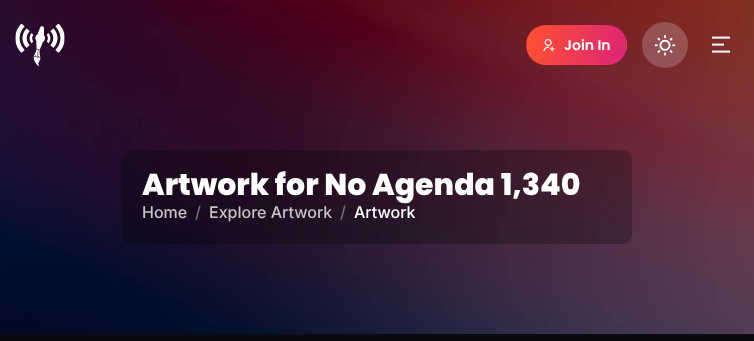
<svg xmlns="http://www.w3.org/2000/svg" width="754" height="341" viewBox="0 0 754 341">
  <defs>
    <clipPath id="clip1"><rect x="526" y="25" width="101" height="40" rx="20"/></clipPath>
    <linearGradient id="g1" gradientUnits="userSpaceOnUse" x1="525" y1="0.5" x2="628" y2="14"><stop offset="0" stop-color="#ff512f"/><stop offset="1" stop-color="#dd2476"/></linearGradient>
    <linearGradient id="g2" gradientUnits="userSpaceOnUse" x1="426" y1="38" x2="529" y2="52"><stop offset="0" stop-color="#ff512f"/><stop offset="1" stop-color="#dd2476"/></linearGradient>
    <linearGradient id="g3" gradientUnits="userSpaceOnUse" x1="525" y1="38" x2="628" y2="52"><stop offset="0" stop-color="#ff512f"/><stop offset="1" stop-color="#dd2476"/></linearGradient>
    <linearGradient id="g4" gradientUnits="userSpaceOnUse" x1="624" y1="38" x2="727" y2="52"><stop offset="0" stop-color="#ff512f"/><stop offset="1" stop-color="#dd2476"/></linearGradient>
    <linearGradient id="g5" gradientUnits="userSpaceOnUse" x1="525" y1="76" x2="628" y2="90"><stop offset="0" stop-color="#ff512f"/><stop offset="1" stop-color="#dd2476"/></linearGradient>
  </defs>
  <rect width="100%" height="100%" fill="#fff"/>
  <image x="0" y="0" width="754" height="334" href="img/5.png"/>
  <image x="15" y="23" width="50" height="44" href="img/1.png"/>
  <g clip-path="url(#clip1)">
    <path d="M540 25h73v1H540z" fill="url(#g1)"/>
    <path d="M526 39h1v12H526z" fill="url(#g2)"/>
    <path d="M527 26h99v38H527z" fill="url(#g3)"/>
    <path d="M626 39h1v12H626z" fill="url(#g4)"/>
    <path d="M540 64h73v1H540z" fill="url(#g5)"/>
  </g>
  <image x="543" y="39" width="12" height="13" href="img/2.png"/>
  <circle cx="665" cy="45" r="23" fill="#ffffff33"/>
  <image x="654" y="35" width="22" height="21" href="img/3.png"/>
  <image x="712" y="36" width="18" height="17" href="img/4.png"/>
  <rect x="122" y="150" width="510" height="94" rx="10" fill="#00000040"/>
  <path d="M0 334h754v7H0z" fill="#0b0b0f"/>
  <text x="564" y="50" font-family="Poppins" font-size="14" font-weight="600" fill="#fff">Join In</text>
  <text x="142" y="195" font-family="Poppins" font-size="30" font-weight="800" fill="#fff">Artwork for No Agenda 1,340</text>
  <text x="142" y="218" font-family="Inter" font-size="16" font-weight="500" fill="#c5c2c8">Home</text>
  <text x="195" y="218" font-family="Inter" font-size="16" font-weight="500" fill="#6c757d">/</text>
  <text x="209" y="218" font-family="Inter" font-size="16" font-weight="500" fill="#c5c2c8">Explore Artwork</text>
  <text x="340" y="218" font-family="Inter" font-size="16" font-weight="500" fill="#6c757d">/</text>
  <text x="354" y="218" font-family="Inter" font-size="16" font-weight="500" fill="#fff">Artwork</text>
</svg>
